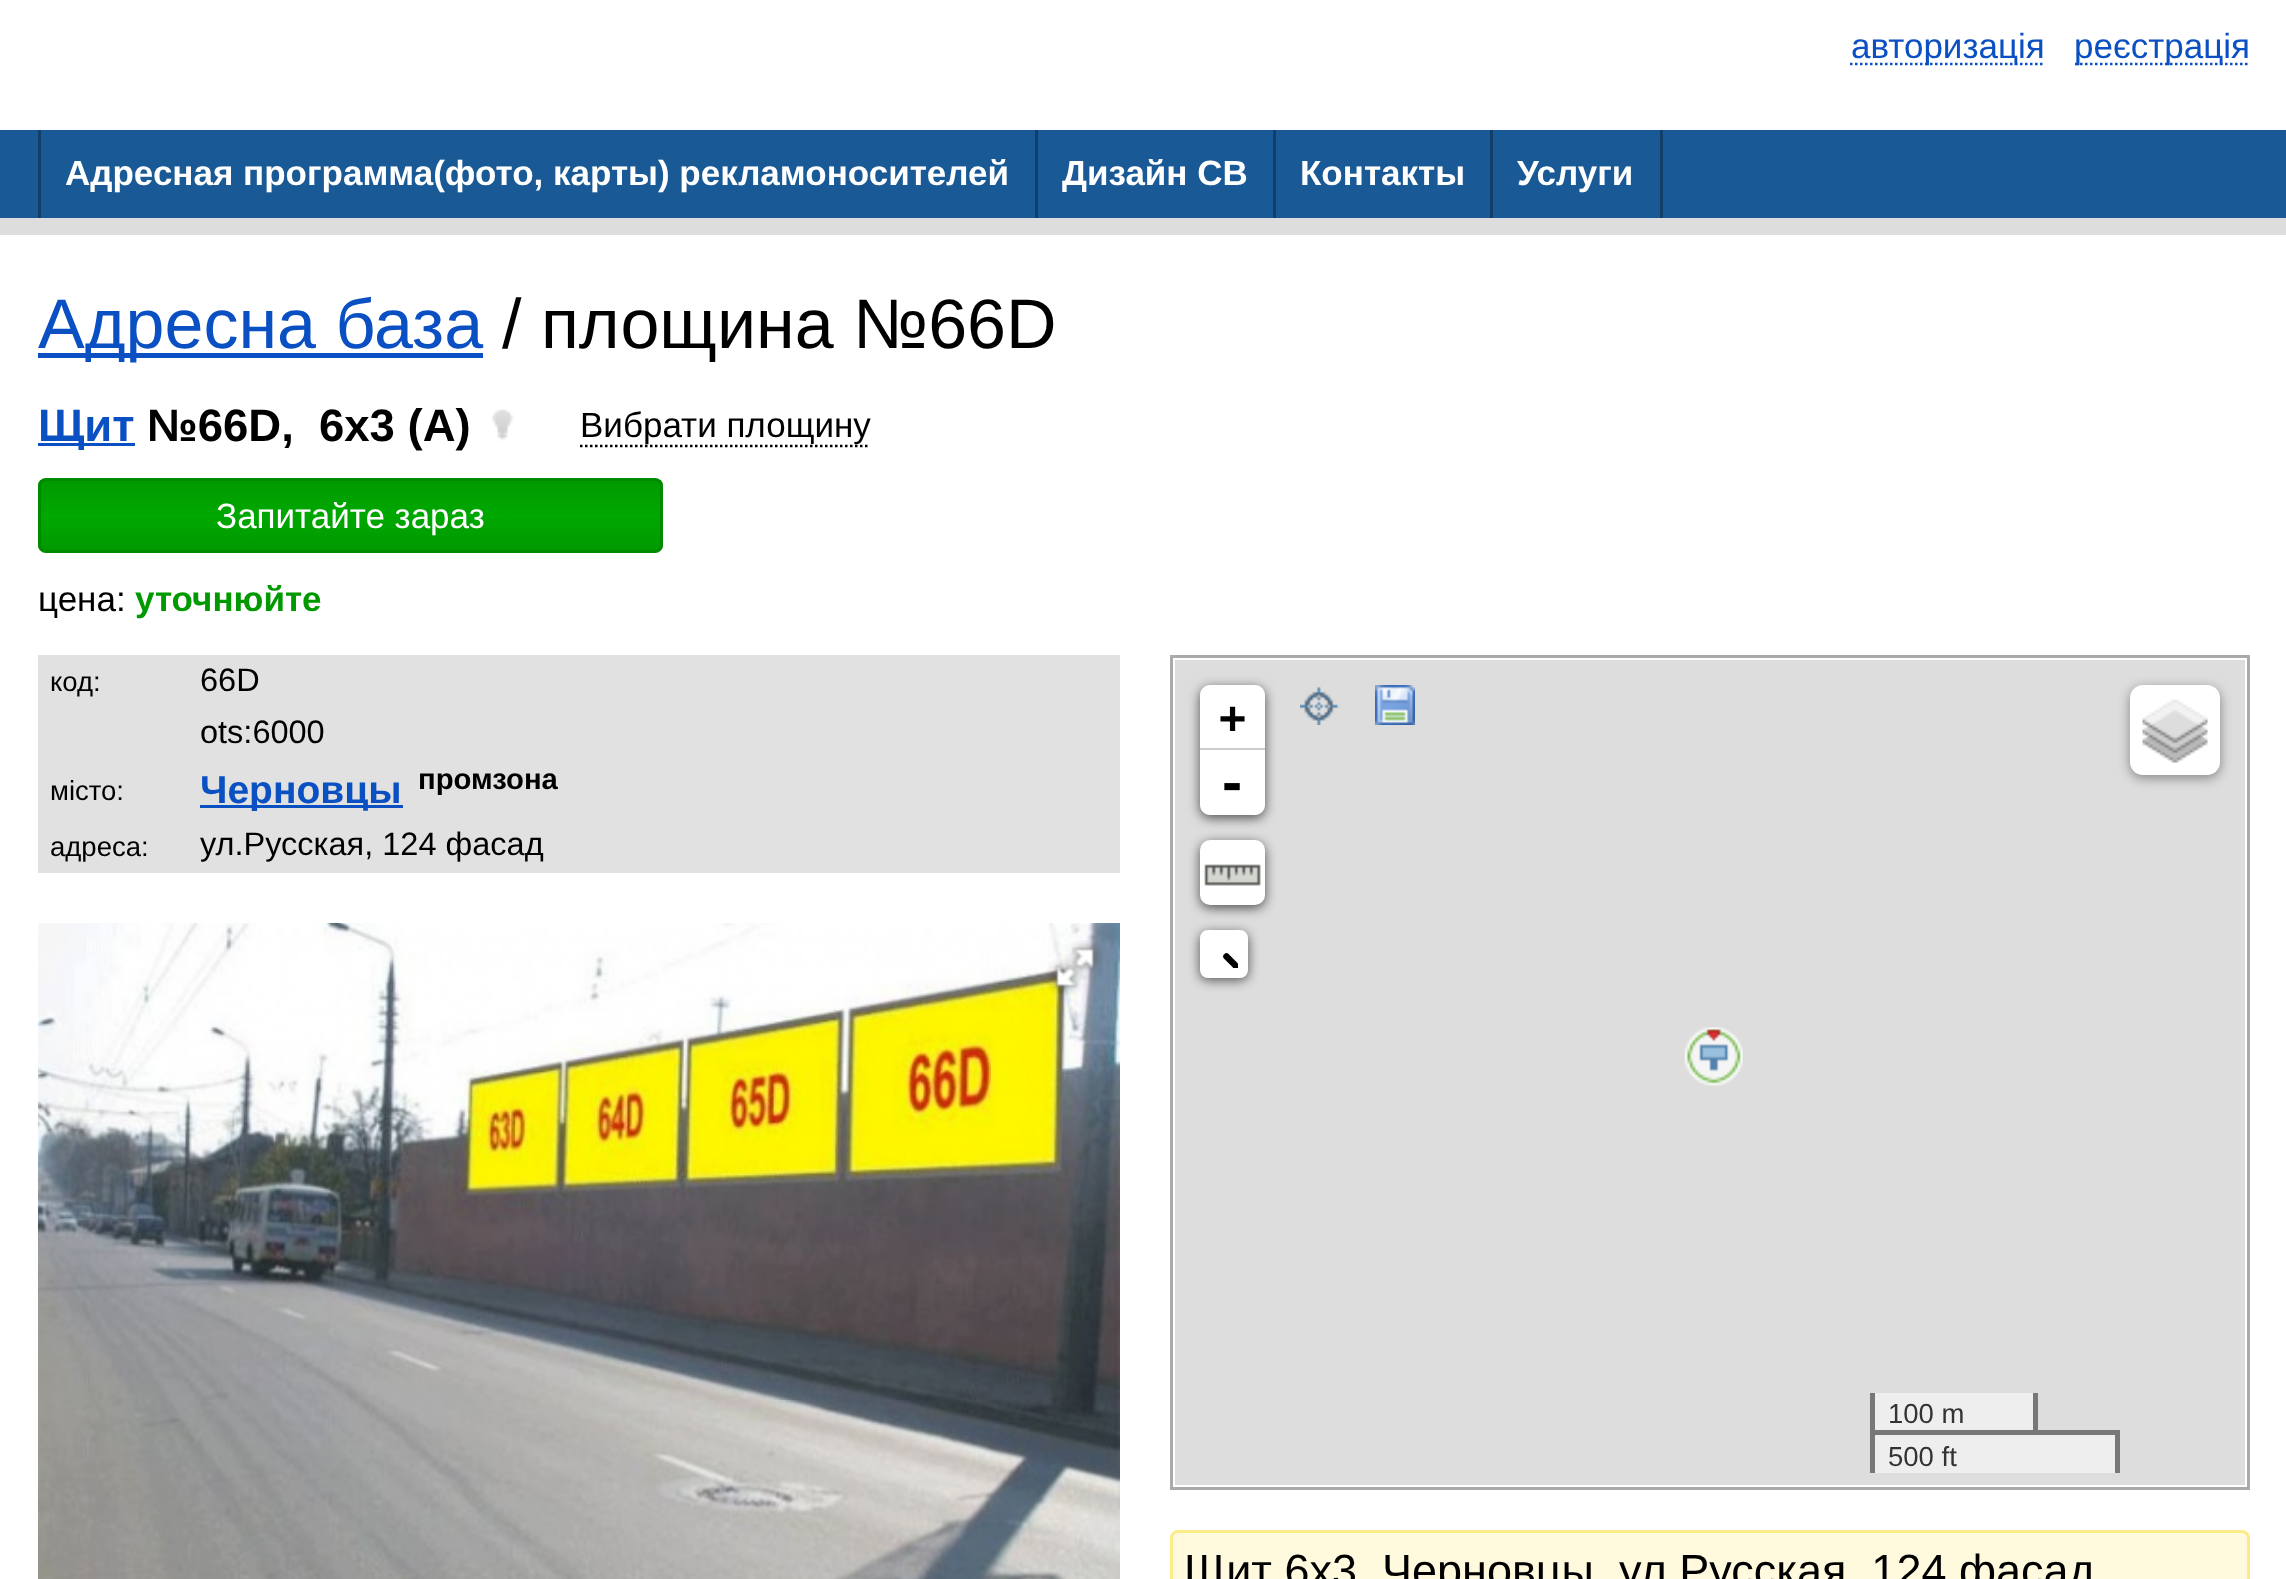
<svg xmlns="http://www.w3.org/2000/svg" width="2286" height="1579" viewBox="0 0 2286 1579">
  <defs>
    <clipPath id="clip1"><rect x="38" y="478" width="625" height="75" rx="8"/></clipPath>
    <linearGradient id="g1" gradientUnits="userSpaceOnUse" x1="350" y1="480" x2="350" y2="550"><stop offset="0" stop-color="#090"/><stop offset="0.5" stop-color="#00a800"/><stop offset="1" stop-color="#090"/></linearGradient>
    <clipPath id="clip2"><path d="M1210 940h28v28H1210z"/></clipPath>
  </defs>
  <rect width="100%" height="100%" fill="#fff"/>
  <path d="M1850 64H2045" fill="none" stroke="#0b50c3" stroke-width="2.5" stroke-dasharray="2.5 2.5"/>
  <path d="M2075 64H2250" fill="none" stroke="#0b50c3" stroke-width="2.5" stroke-dasharray="2.5 2.5"/>
  <path d="M0 130h2286v88H0z" fill="#195995"/>
  <path d="M0 218h2286v17H0z" fill="#ddd"/>
  <path d="M38 130h3v88H38z" fill="#123f69"/>
  <path d="M1035 130h3v88H1035z" fill="#123f69"/>
  <path d="M1273 130h3v88H1273z" fill="#123f69"/>
  <path d="M1660 130h3v88H1660z" fill="#123f69"/>
  <path d="M1490 130h3v88H1490z" fill="#123f69"/>
  <path d="M38 353h445v5H38z" fill="#0b50c3"/>
  <path d="M38 443h97v3H38z" fill="#0b50c3"/>
  <image x="492" y="409" width="22" height="32" href="img/1.png"/>
  <path d="M580 446H870" fill="none" stroke="#000" stroke-width="2.5" stroke-dasharray="2.5 2.5"/>
  <g clip-path="url(#clip1)">
    <path d="M38 480h625v70H38z" fill="url(#g1)"/>
  </g>
  <rect x="39.5" y="479.5" width="622" height="72" rx="6.5" fill="none" stroke="#008a00" stroke-width="3"/>
  <path d="M38 655h1082v218H38z" fill="#e1e1e1"/>
  <path d="M200 805h203v3H200z" fill="#0b50c3"/>
  <image x="38" y="923" width="1082" height="656" href="img/2.png"/>
  <image x="1047" y="940" width="56" height="55" href="img/3.png"/>
  <path d="M1171.5 656.5h1077v832H1171.5z" fill="none" stroke="#aaa" stroke-width="3"/>
  <path d="M1175 660h1070v825H1175z" fill="#ddd"/>
  <path d="M1875 1435h240v38H1875z" fill="#eee"/>
  <rect x="1200" y="688" width="65" height="130" rx="10" fill="#000000a6" filter="blur(6px)"/>
  <path d="M1210 685H1255C1260.5 685 1265 689.5 1265 695V750H1200V695C1200 689.5 1204.5 685 1210 685Z" fill="#fff"/>
  <path d="M1200 748h65v2H1200z" fill="#ccc"/>
  <path d="M1200 750H1265V805C1265 810.5 1260.5 815 1255 815H1210C1204.5 815 1200 810.5 1200 805Z" fill="#fff"/>
  <image x="1300" y="686" width="39" height="39" href="img/4.png"/>
  <image x="1375" y="685" width="40" height="40" href="img/5.png"/>
  <rect x="1200" y="843" width="65" height="65" rx="10" fill="#000000a6" filter="blur(6px)"/>
  <rect x="1200" y="840" width="65" height="65" rx="10" fill="#fff"/>
  <image x="1204" y="864" width="57" height="22" href="img/6.png"/>
  <rect x="1200" y="933" width="48" height="47" rx="8" fill="#000000a6" filter="blur(6px)"/>
  <rect x="1205" y="935" width="38" height="38" rx="3" fill="none" stroke="#fff" stroke-width="10"/>
  <path d="M1210 940h28v28H1210z" fill="#fff"/>
  <g clip-path="url(#clip2)">
    <path d="M1245 974.5V959.5L1229.5 974.5Z" fill="none" stroke="#000" stroke-width="4.3"/>
    <path d="M1243.5 973.5L1226.5 956.5" fill="none" stroke="#000" stroke-width="6.5" stroke-linecap="round"/>
  </g>
  <rect x="2130" y="688" width="90" height="90" rx="13" fill="#00000066" filter="blur(6px)"/>
  <rect x="2130" y="685" width="90" height="90" rx="13" fill="#fff"/>
  <image x="2142" y="699" width="66" height="64" href="img/7.png"/>
  <path d="M1875 1393h158v37H1875z" fill="#eee"/>
  <path d="M2033 1393h5v42H2033z" fill="#777"/>
  <path d="M1870 1393h5v42H1870z" fill="#777"/>
  <path d="M1870 1430h250v5H1870z" fill="#777"/>
  <path d="M2115 1430h5v43H2115z" fill="#777"/>
  <path d="M1870 1430h5v43H1870z" fill="#777"/>
  <image x="1684" y="1027" width="59" height="59" href="img/8.png"/>
  <image x="1706" y="1028" width="16" height="14" href="img/9.png"/>
  <image x="1699" y="1043" width="30" height="29" href="img/10.png"/>
  <rect x="1171.5" y="1531.5" width="1077" height="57" rx="6.5" fill="#fff9dd" stroke="#fbec88" stroke-width="3"/>
  <g font-family="Liberation Sans" font-size="35" fill="#0b50c3">
    <text x="1851" y="58">авторизація</text>
    <text x="2074" y="58">реєстрація</text>
  </g>
  <g font-family="Liberation Sans" font-size="35" font-weight="bold" fill="#fff">
    <text x="65" y="185">Адресная программа(фото, карты) рекламоносителей</text>
    <text x="1062" y="185">Дизайн СВ</text>
    <text x="1300" y="185">Контакты</text>
    <text x="1517" y="185">Услуги</text>
  </g>
  <text x="38" y="348" font-family="Liberation Sans" font-size="70" fill="#0b50c3">Адресна база</text>
  <text x="502" y="348" font-family="Liberation Sans" font-size="70" fill="#000">/ площина №66D</text>
  <text x="38" y="441" font-family="Liberation Sans" font-size="45.5" font-weight="bold" fill="#0b50c3">Щит</text>
  <g font-family="Liberation Sans" font-size="45.5" font-weight="bold" fill="#000">
    <text x="147" y="441">№66D,</text>
    <text x="319" y="441">6x3 (A)</text>
  </g>
  <text x="580" y="437" font-family="Liberation Sans" font-size="35" fill="#000">Вибрати площину</text>
  <text x="216" y="528" font-family="Liberation Sans" font-size="35" fill="#fff">Запитайте зараз</text>
  <text x="38" y="611" font-family="Liberation Sans" font-size="35" fill="#000">цена:</text>
  <text x="135" y="611" font-family="Liberation Sans" font-size="35" font-weight="bold" fill="#090">уточнюйте</text>
  <text x="50" y="691" font-family="Liberation Sans" font-size="27.5" fill="#000">код:</text>
  <g font-family="Liberation Sans" font-size="32.5" fill="#000">
    <text x="200" y="691">66D</text>
    <text x="200" y="743">ots:6000</text>
  </g>
  <text x="50" y="800" font-family="Liberation Sans" font-size="27.5" fill="#000">місто:</text>
  <text x="200" y="803" font-family="Liberation Sans" font-size="39" font-weight="bold" fill="#0b50c3">Черновцы</text>
  <text x="418" y="789" font-family="Liberation Sans" font-size="29.25" font-weight="bold" fill="#000">промзона</text>
  <text x="50" y="856" font-family="Liberation Sans" font-size="27.5" fill="#000">адреса:</text>
  <text x="200" y="855" font-family="Liberation Sans" font-size="32.5" fill="#000">ул.Русская, 124 фасад</text>
  <text x="1219" y="733" font-family="DejaVu Sans Mono" font-size="45" font-weight="bold" fill="#000">+</text>
  <text x="1217" y="801" font-family="DejaVu Sans Mono" font-size="50" font-weight="bold" fill="#000">-</text>
  <g font-family="Liberation Sans" font-size="27.5" fill="#333">
    <text x="1888" y="1423">100 m</text>
    <text x="1888" y="1466">500 ft</text>
  </g>
  <g font-family="Liberation Sans" font-size="45" fill="#000">
    <text x="1184" y="1586">Щит 6x3</text>
    <text x="1382" y="1586">Черновцы</text>
    <text x="1619" y="1586">ул.Русская, 124 фасад</text>
  </g>
</svg>
